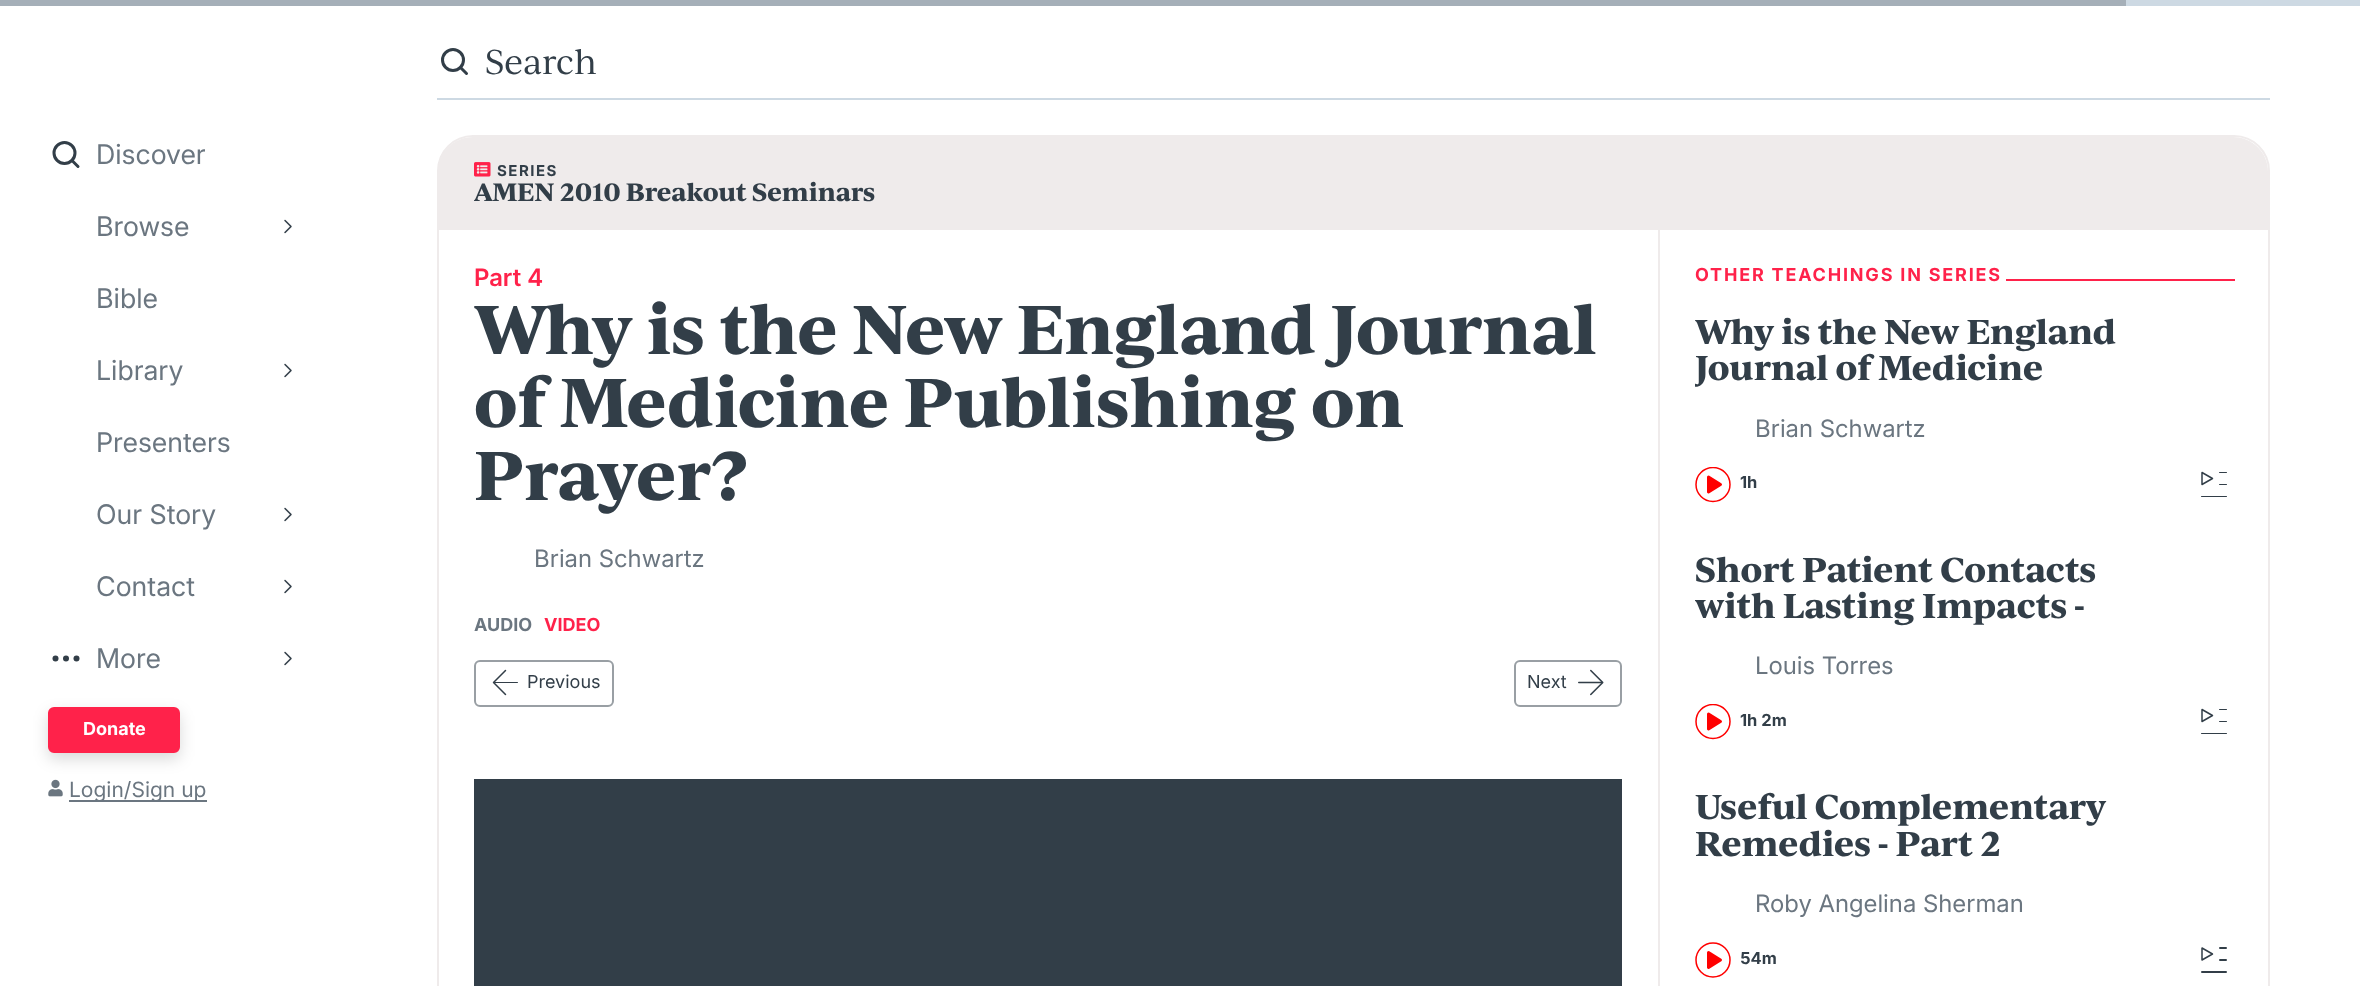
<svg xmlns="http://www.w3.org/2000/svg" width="2360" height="986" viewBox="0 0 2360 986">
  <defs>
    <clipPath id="clip1"><path d="M1695 467h36v36H1695z"/></clipPath>
    <clipPath id="clip2"><path d="M1695 704h36v36H1695z"/></clipPath>
    <clipPath id="clip3"><path d="M1695 312h428v77H1695z"/></clipPath>
  </defs>
  <rect width="100%" height="100%" fill="#fff"/>
  <path d="M2126 0h234v6H2126z" fill="#cdd9e3"/>
  <path d="M0 0h2126v6H0z" fill="#a5afb8"/>
  <circle cx="64.5" cy="153" r="10.5" fill="none" stroke="#323e48" stroke-width="3"/>
  <path d="M72 160.5L78 166.5" fill="none" stroke="#323e48" stroke-width="3" stroke-linecap="round"/>
  <image x="284" y="219" width="8" height="15" href="img/1.png"/>
  <image x="284" y="363" width="8" height="15" href="img/1.png"/>
  <image x="284" y="507" width="8" height="15" href="img/1.png"/>
  <image x="284" y="579" width="8" height="15" href="img/1.png"/>
  <circle cx="55.5" cy="658.5" r="3" fill="#323e48"/>
  <circle cx="66" cy="658.5" r="3" fill="#323e48"/>
  <circle cx="76.5" cy="658.5" r="3" fill="#323e48"/>
  <image x="284" y="651" width="8" height="15" href="img/1.png"/>
  <rect x="48" y="713" width="132" height="46" rx="6" fill="#00000026" filter="blur(7.5px)"/>
  <rect x="49" y="708" width="130" height="44" rx="5" fill="#ff224a" stroke="#ff224a" stroke-width="2"/>
  <image x="48" y="779" width="15" height="18" href="img/2.png"/>
  <path d="M69 800h138v2H69z" fill="#6b7680"/>
  <path d="M437 98h1833v2H437z" fill="#cdd9e3"/>
  <circle cx="453" cy="60" r="10.5" fill="none" stroke="#323e48" stroke-width="3"/>
  <path d="M460.5 67.5L466.5 73.5" fill="none" stroke="#323e48" stroke-width="3" stroke-linecap="round"/>
  <rect x="438" y="136" width="1831" height="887" rx="35" fill="none" stroke="#efebeb" stroke-width="2"/>
  <path d="M473 137H2233C2252.5 137 2268 152.5 2268 172V230H438V172C438 152.5 453.5 137 473 137Z" fill="#efebeb"/>
  <image x="474" y="162" width="17" height="15" href="img/3.png"/>
  <rect x="475" y="661" width="138" height="45" rx="5" fill="none" stroke="#999fa4" stroke-width="2"/>
  <image x="492" y="669" width="26" height="27" href="img/4.png"/>
  <rect x="1515" y="661" width="106" height="45" rx="5" fill="none" stroke="#999fa4" stroke-width="2"/>
  <image x="1578" y="669" width="26" height="27" href="img/5.png"/>
  <path d="M474 779h1148v207H474z" fill="#323e48"/>
  <path d="M1658 230h2v756H1658z" fill="#efebeb"/>
  <path d="M2006 279h229v2H2006z" fill="#ff224a"/>
  <path d="M1708.5 492V477L1720.5 484.5Z" fill="#f00" stroke="#f00" stroke-width="3" stroke-linejoin="round"/>
  <g clip-path="url(#clip1)">
    <circle cx="1713" cy="484.5" r="17" fill="none" stroke="#f00" stroke-width="1.5"/>
  </g>
  <rect x="2219" y="472" width="8" height="1" rx="0.5" fill="#323e48"/>
  <path d="M2212.5 478.5L2202 472.5V484.5Z" fill="none" stroke="#323e48" stroke-width="1.5" stroke-linejoin="round"/>
  <rect x="2219" y="484" width="8" height="1" rx="0.5" fill="#323e48"/>
  <rect x="2201" y="496" width="26" height="1" rx="0.5" fill="#323e48"/>
  <path d="M1708.5 729V714L1720.5 721.5Z" fill="#f00" stroke="#f00" stroke-width="3" stroke-linejoin="round"/>
  <g clip-path="url(#clip2)">
    <circle cx="1713" cy="721.5" r="17" fill="none" stroke="#f00" stroke-width="1.5"/>
  </g>
  <rect x="2219" y="709" width="8" height="1" rx="0.5" fill="#323e48"/>
  <path d="M2212.5 715.5L2202 709.5V721.5Z" fill="none" stroke="#323e48" stroke-width="1.5" stroke-linejoin="round"/>
  <rect x="2219" y="721" width="8" height="1" rx="0.5" fill="#323e48"/>
  <rect x="2201" y="733" width="26" height="1" rx="0.5" fill="#323e48"/>
  <path d="M1708.5 967.5V952.5L1720.5 960Z" fill="#f00" stroke="#f00" stroke-width="3" stroke-linejoin="round"/>
  <circle cx="1713" cy="960" r="17" fill="none" stroke="#f00" stroke-width="1.5"/>
  <rect x="2219" y="947" width="8" height="2" rx="1" fill="#323e48"/>
  <path d="M2212.5 954L2202 948V960Z" fill="none" stroke="#323e48" stroke-width="1.5" stroke-linejoin="round"/>
  <rect x="2219" y="959" width="8" height="2" rx="1" fill="#323e48"/>
  <rect x="2201" y="971" width="26" height="2" rx="1" fill="#323e48"/>
  <g font-family="'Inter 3'" font-size="27" fill="#6b7680">
    <text x="96" y="164">Discover</text>
    <text x="96" y="236">Browse</text>
    <text x="96" y="308">Bible</text>
    <text x="96" y="380">Library</text>
    <text x="96" y="452">Presenters</text>
    <text x="96" y="524">Our Story</text>
    <text x="96" y="596">Contact</text>
    <text x="96" y="668">More</text>
  </g>
  <text x="83" y="735" font-family="Inter" font-size="18" font-weight="bold" fill="#fff">Donate</text>
  <text x="69" y="797" font-family="'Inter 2'" font-size="21" fill="#6b7680">Login/Sign up</text>
  <text x="485" y="74" font-family="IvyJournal" font-size="33" fill="#323e48">Search</text>
  <text x="497" y="176" font-family="Inter" font-size="15" font-weight="bold" letter-spacing="1.5" fill="#323e48">SERIES</text>
  <text x="474" y="201" font-family="IvyJournal" font-size="24" font-weight="bold" fill="#323e48">AMEN 2010 Breakout Seminars</text>
  <text x="474" y="286" font-family="Inter" font-size="24" font-weight="600" fill="#ff224a">Part 4</text>
  <g font-family="IvyJournal" font-size="66" font-weight="bold" fill="#323e48">
    <text x="474" y="354">Why is the New England Journal</text>
    <text x="474" y="427">of Medicine Publishing on</text>
    <text x="474" y="500">Prayer?</text>
  </g>
  <text x="534" y="567" font-family="Inter" font-size="24" fill="#6b7680">Brian Schwartz</text>
  <text x="474" y="631" font-family="Inter" font-size="18" font-weight="bold" fill="#6b7680">AUDIO</text>
  <text x="544" y="631" font-family="Inter" font-size="18" font-weight="bold" fill="#ff224a">VIDEO</text>
  <g font-family="'Inter 2'" font-size="18" fill="#323e48">
    <text x="527" y="688">Previous</text>
    <text x="1527" y="688">Next</text>
  </g>
  <text x="1695" y="281" font-family="Inter" font-size="18" font-weight="bold" letter-spacing="1.8" fill="#ff224a">OTHER TEACHINGS IN SERIES</text>
  <text x="1695" y="344" font-family="IvyJournal" font-size="33" font-weight="bold" fill="#323e48">Why is the New England</text>
  <g clip-path="url(#clip3)">
    <text x="1695" y="380" font-family="IvyJournal" font-size="33" font-weight="bold" fill="#323e48">Journal of Medicine</text>
  </g>
  <text x="1755" y="437" font-family="Inter" font-size="24" fill="#6b7680">Brian Schwartz</text>
  <text x="1740" y="488" font-family="Inter" font-size="16.5" font-weight="bold" fill="#323e48">1h</text>
  <g font-family="IvyJournal" font-size="33" font-weight="bold" fill="#323e48">
    <text x="1695" y="582">Short Patient Contacts</text>
    <text x="1695" y="618">with Lasting Impacts -</text>
  </g>
  <text x="1755" y="674" font-family="Inter" font-size="24" fill="#6b7680">Louis Torres</text>
  <text x="1740" y="726" font-family="Inter" font-size="16.5" font-weight="bold" fill="#323e48">1h 2m</text>
  <g font-family="IvyJournal" font-size="33" font-weight="bold" fill="#323e48">
    <text x="1695" y="819">Useful Complementary</text>
    <text x="1695" y="856">Remedies - Part 2</text>
  </g>
  <text x="1755" y="912" font-family="Inter" font-size="24" fill="#6b7680">Roby Angelina Sherman</text>
  <text x="1740" y="964" font-family="Inter" font-size="16.5" font-weight="bold" fill="#323e48">54m</text>
</svg>
